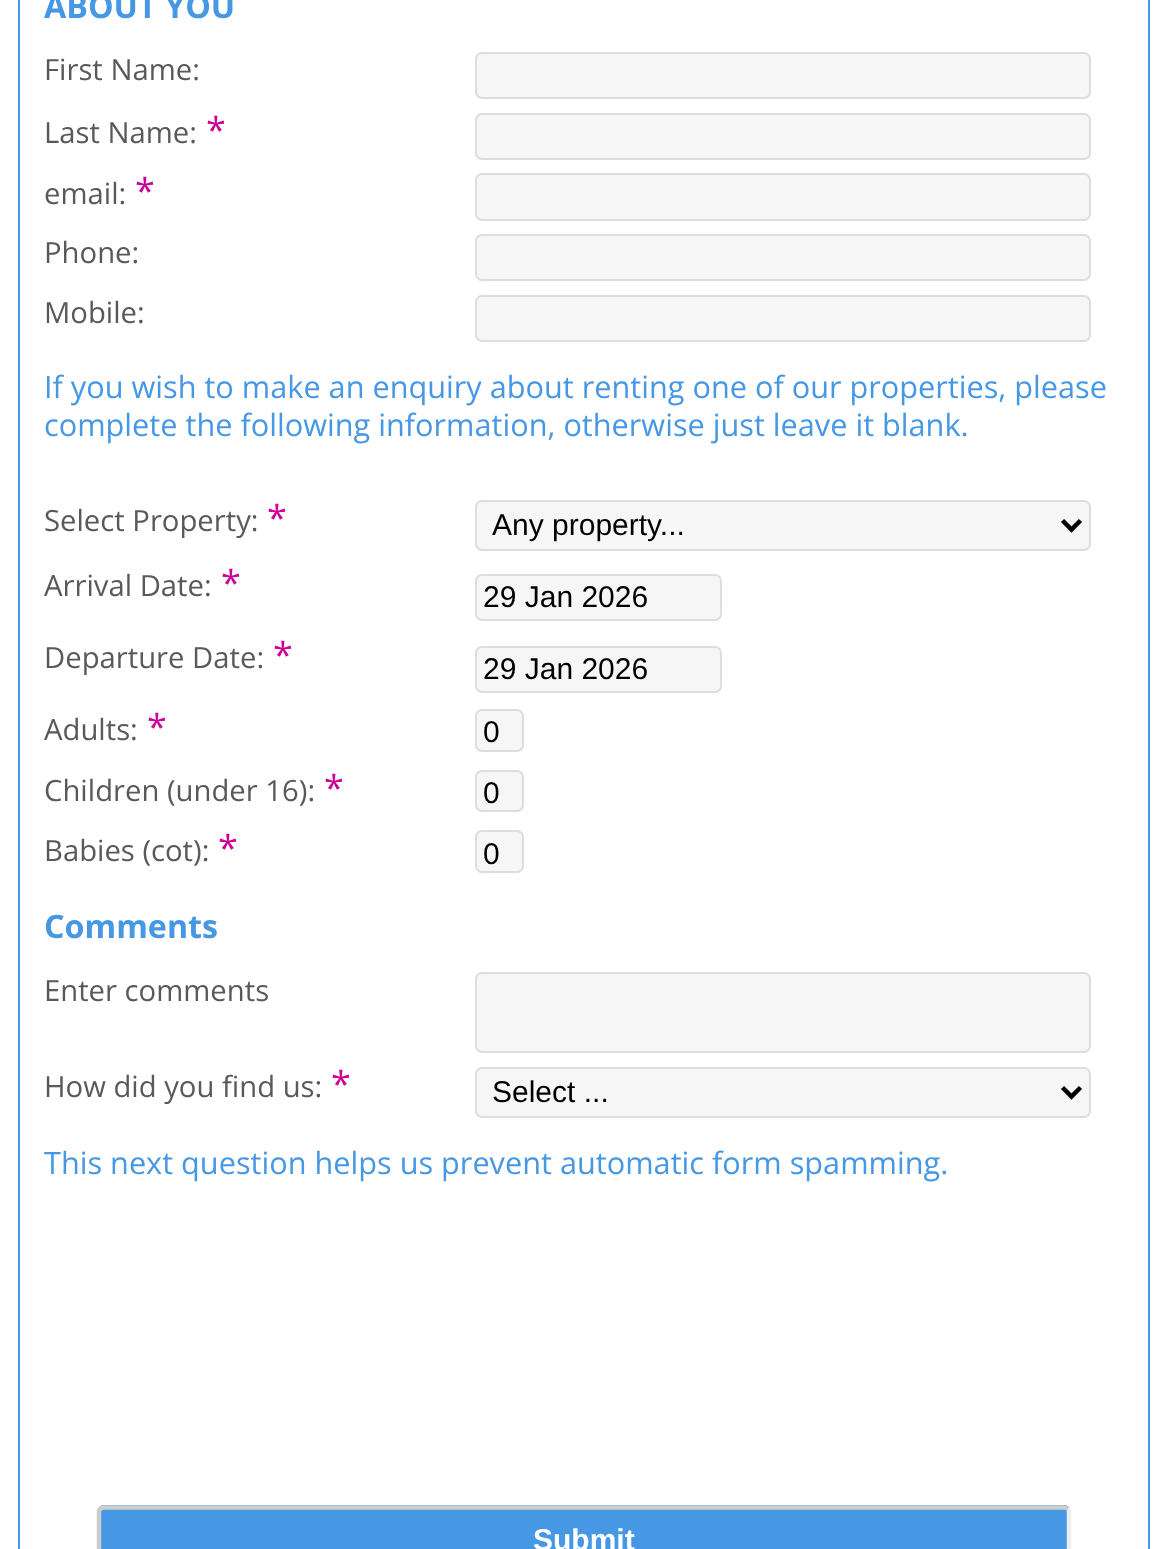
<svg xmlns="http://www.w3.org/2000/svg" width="1167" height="1549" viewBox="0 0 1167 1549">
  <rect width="100%" height="100%" fill="#fff"/>
  <path d="M19 -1h1130v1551H19z" fill="none" stroke="#4697e4" stroke-width="2"/>
  <rect x="476" y="53" width="614" height="45" rx="6" fill="#f6f6f6" stroke="#ddd" stroke-width="2"/>
  <rect x="476" y="114" width="614" height="45" rx="6" fill="#f6f6f6" stroke="#ddd" stroke-width="2"/>
  <rect x="476" y="174" width="614" height="46" rx="6" fill="#f6f6f6" stroke="#ddd" stroke-width="2"/>
  <rect x="476" y="235" width="614" height="45" rx="6" fill="#f6f6f6" stroke="#ddd" stroke-width="2"/>
  <rect x="476" y="296" width="614" height="45" rx="6" fill="#f6f6f6" stroke="#ddd" stroke-width="2"/>
  <rect x="476" y="501" width="614" height="49" rx="6" fill="#f6f6f6" stroke="#ddd" stroke-width="2"/>
  <path d="M1062.5 520.5L1071.5 529.5L1080.5 520.5" fill="none" stroke="#000" stroke-width="4.5"/>
  <rect x="476" y="575" width="245" height="45" rx="6" fill="#f6f6f6" stroke="#ddd" stroke-width="2"/>
  <rect x="476" y="647" width="245" height="45" rx="6" fill="#f6f6f6" stroke="#ddd" stroke-width="2"/>
  <rect x="476" y="710" width="47" height="41" rx="6" fill="#f6f6f6" stroke="#ddd" stroke-width="2"/>
  <rect x="476" y="771" width="47" height="40" rx="6" fill="#f6f6f6" stroke="#ddd" stroke-width="2"/>
  <rect x="476" y="831" width="47" height="41" rx="6" fill="#f6f6f6" stroke="#ddd" stroke-width="2"/>
  <rect x="476" y="973" width="614" height="79" rx="6" fill="#f6f6f6" stroke="#ddd" stroke-width="2"/>
  <rect x="476" y="1068" width="614" height="49" rx="6" fill="#f6f6f6" stroke="#ddd" stroke-width="2"/>
  <path d="M1062.5 1087.5L1071.5 1096.5L1080.5 1087.5" fill="none" stroke="#000" stroke-width="4.5"/>
  <rect x="97" y="1505" width="974" height="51" rx="7" fill="#4697e4"/>
  <path d="M1067.5 1509C1068.5 1509.5 1069 1511 1069 1512V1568C1069 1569.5 1068.5 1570.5 1067.5 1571.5C1066.5 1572.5 1065.5 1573 1064 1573H103.5C102.5 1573 101 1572.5 100.5 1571.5" fill="none" stroke="#eee" stroke-width="4.5"/>
  <path d="M100.5 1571.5C99.5 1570.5 99 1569.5 99 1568V1512C99 1511 99.5 1509.5 100.5 1509C101 1508 102.5 1507.5 103.5 1507.5H1064C1065.5 1507.5 1066.5 1508 1067.5 1509" fill="none" stroke="#ccc" stroke-width="4.5"/>
  <text x="44" y="18" font-family="Open Sans" font-size="32.25" font-weight="bold" fill="#4697e4">ABOUT YOU</text>
  <g font-family="Open Sans" font-size="29.25" fill="#595959">
    <text x="44" y="80">First Name:</text>
    <text x="44" y="143">Last Name:</text>
  </g>
  <text x="206" y="143" font-family="Open Sans" font-size="36" fill="#c09">*</text>
  <text x="44" y="204" font-family="Open Sans" font-size="29.25" fill="#595959">email:</text>
  <text x="135" y="204" font-family="Open Sans" font-size="36" fill="#c09">*</text>
  <g font-family="Open Sans" font-size="29.25" fill="#595959">
    <text x="44" y="263">Phone:</text>
    <text x="44" y="323">Mobile:</text>
  </g>
  <g font-family="Open Sans" font-size="30.7" fill="#4697e4">
    <text x="44" y="398">If you wish to make an enquiry about renting one of our properties, please</text>
    <text x="44" y="436">complete the following information, otherwise just leave it blank.</text>
  </g>
  <text x="44" y="531" font-family="Open Sans" font-size="29.25" fill="#595959">Select Property:</text>
  <text x="267" y="531" font-family="Open Sans" font-size="36" fill="#c09">*</text>
  <text x="492" y="535" font-family="Liberation Sans" font-size="30" fill="#000">Any property...</text>
  <text x="44" y="596" font-family="Open Sans" font-size="29.25" fill="#595959">Arrival Date:</text>
  <text x="221" y="596" font-family="Open Sans" font-size="36" fill="#c09">*</text>
  <text x="483" y="607" font-family="Liberation Sans" font-size="30" fill="#000">29 Jan 2026</text>
  <text x="44" y="668" font-family="Open Sans" font-size="29.25" fill="#595959">Departure Date:</text>
  <text x="273" y="668" font-family="Open Sans" font-size="36" fill="#c09">*</text>
  <text x="483" y="679" font-family="Liberation Sans" font-size="30" fill="#000">29 Jan 2026</text>
  <text x="44" y="740" font-family="Open Sans" font-size="29.25" fill="#595959">Adults:</text>
  <text x="147" y="740" font-family="Open Sans" font-size="36" fill="#c09">*</text>
  <text x="483" y="742" font-family="Liberation Sans" font-size="30" fill="#000">0</text>
  <text x="44" y="801" font-family="Open Sans" font-size="29.25" fill="#595959">Children (under 16):</text>
  <text x="324" y="801" font-family="Open Sans" font-size="36" fill="#c09">*</text>
  <text x="483" y="803" font-family="Liberation Sans" font-size="30" fill="#000">0</text>
  <text x="44" y="861" font-family="Open Sans" font-size="29.25" fill="#595959">Babies (cot):</text>
  <text x="218" y="861" font-family="Open Sans" font-size="36" fill="#c09">*</text>
  <text x="483" y="864" font-family="Liberation Sans" font-size="30" fill="#000">0</text>
  <text x="44" y="938" font-family="Open Sans" font-size="32.25" font-weight="bold" fill="#4697e4">Comments</text>
  <g font-family="Open Sans" font-size="29.25" fill="#595959">
    <text x="44" y="1001">Enter comments</text>
    <text x="44" y="1097">How did you find us:</text>
  </g>
  <text x="331" y="1097" font-family="Open Sans" font-size="36" fill="#c09">*</text>
  <text x="492" y="1102" font-family="Liberation Sans" font-size="30" fill="#000">Select ...</text>
  <text x="44" y="1174" font-family="Open Sans" font-size="30.7" fill="#4697e4">This next question helps us prevent automatic form spamming.</text>
  <text x="533" y="1550" font-family="Liberation Sans" font-size="30" font-weight="bold" fill="#fff">Submit</text>
</svg>
